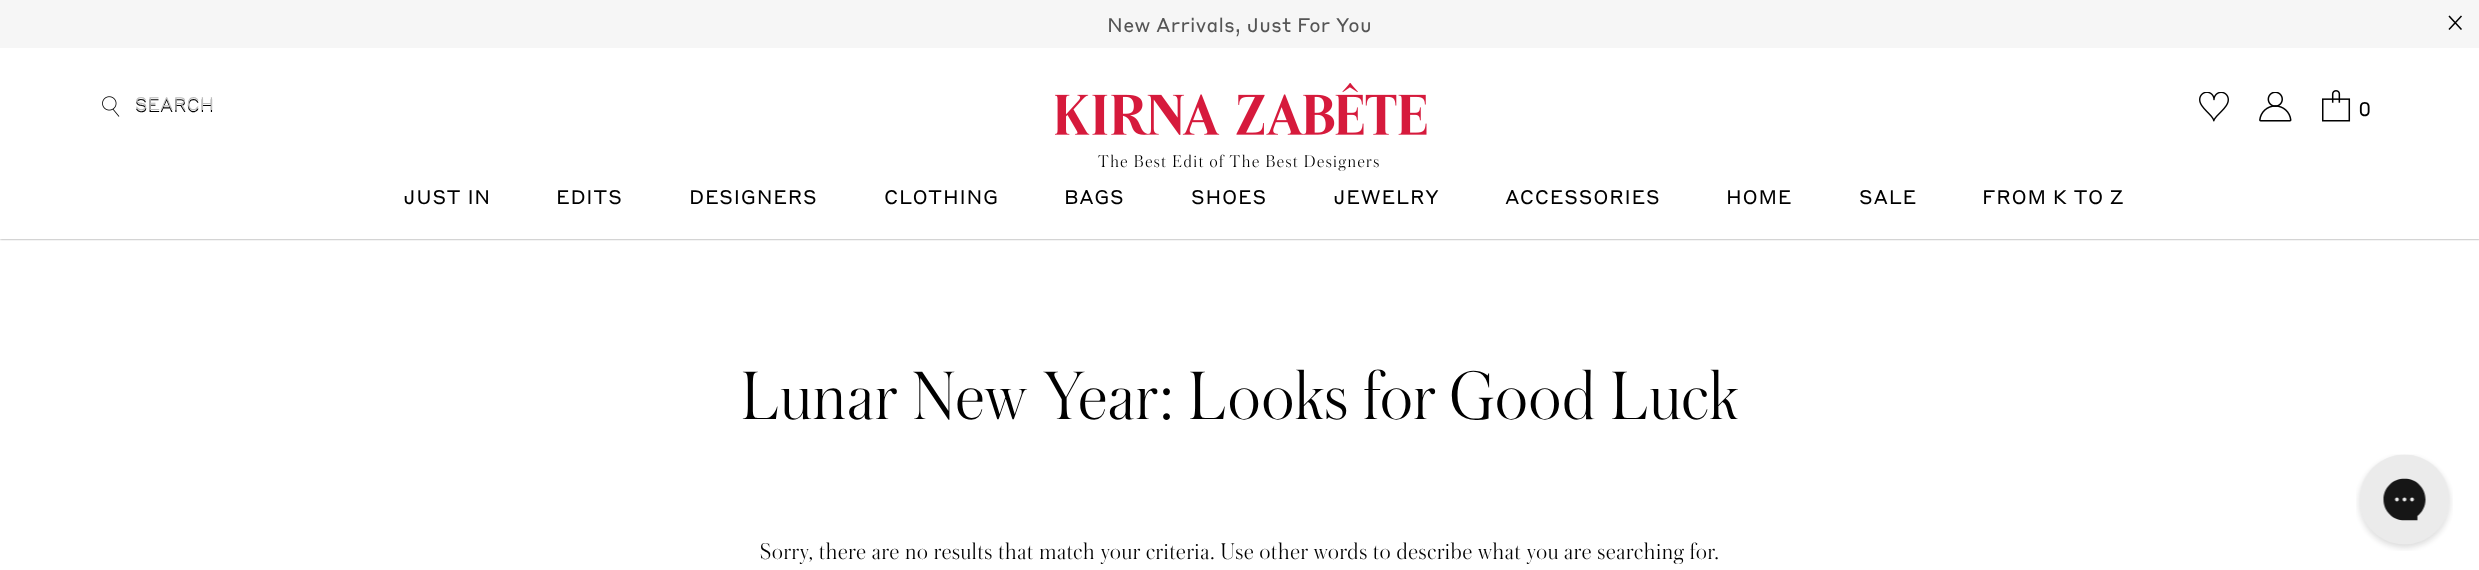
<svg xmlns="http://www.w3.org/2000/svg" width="2479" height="570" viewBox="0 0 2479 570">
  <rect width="100%" height="100%" fill="#fff"/>
  <path d="M0 48h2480v191H0z" fill="#00000080" filter="blur(1px)"/>
  <path d="M0 0h2479v48H0z" fill="#f6f6f6"/>
  <path d="M2449.5 16.5L2461 29M2461 16.5L2449.5 29" fill="none" stroke="#000" stroke-width="1.5" stroke-linecap="square"/>
  <path d="M0 48h2479v191H0z" fill="#fff"/>
  <image x="102" y="96" width="18" height="21" href="img/1.png"/>
  <image x="2199" y="92" width="30" height="30" href="img/2.png"/>
  <image x="2259" y="92" width="33" height="30" href="img/3.png"/>
  <image x="2322" y="90" width="29" height="32" href="img/4.png"/>
  <image x="1055" y="83" width="372" height="52" href="img/5.png"/>
  <image x="2356" y="454" width="97" height="97" href="img/6.png"/>
  <text x="1107" y="32" font-family="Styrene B" font-size="19.5" letter-spacing="0.3" fill="#555">New Arrivals, Just For You</text>
  <text x="135" y="112" font-family="Styrene B" font-size="18" font-weight="300" fill="#000">SEARCH</text>
  <text x="135" y="110" font-family="Styrene B" font-size="18" font-weight="300" fill="#bdbdbd">SEARCH</text>
  <text x="2358" y="116" font-family="Styrene B" font-size="19.5" fill="#000">0</text>
  <text x="1098" y="167" font-family="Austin" font-size="18" font-weight="300" letter-spacing="1.5" fill="#000">The Best Edit of The Best Designers</text>
  <g font-family="Styrene B" font-size="19.5" letter-spacing="0.75" fill="#000">
    <text x="403" y="204">JUST IN</text>
    <text x="556" y="204">EDITS</text>
    <text x="689" y="204">DESIGNERS</text>
    <text x="884" y="204">CLOTHING</text>
    <text x="1064" y="204">BAGS</text>
    <text x="1191" y="204">SHOES</text>
    <text x="1333" y="204">JEWELRY</text>
    <text x="1505" y="204">ACCESSORIES</text>
    <text x="1726" y="204">HOME</text>
    <text x="1859" y="204">SALE</text>
    <text x="1982" y="204">FROM K TO Z</text>
  </g>
  <text x="741" y="419" font-family="Austin" font-size="72" font-weight="300" letter-spacing="0.75" fill="#000">Lunar New Year: Looks for Good Luck</text>
  <text x="760" y="559" font-family="Austin" font-size="24" font-weight="300" letter-spacing="0.75" fill="#000">Sorry, there are no results that match your criteria. Use other words to describe what you are searching for.</text>
</svg>
